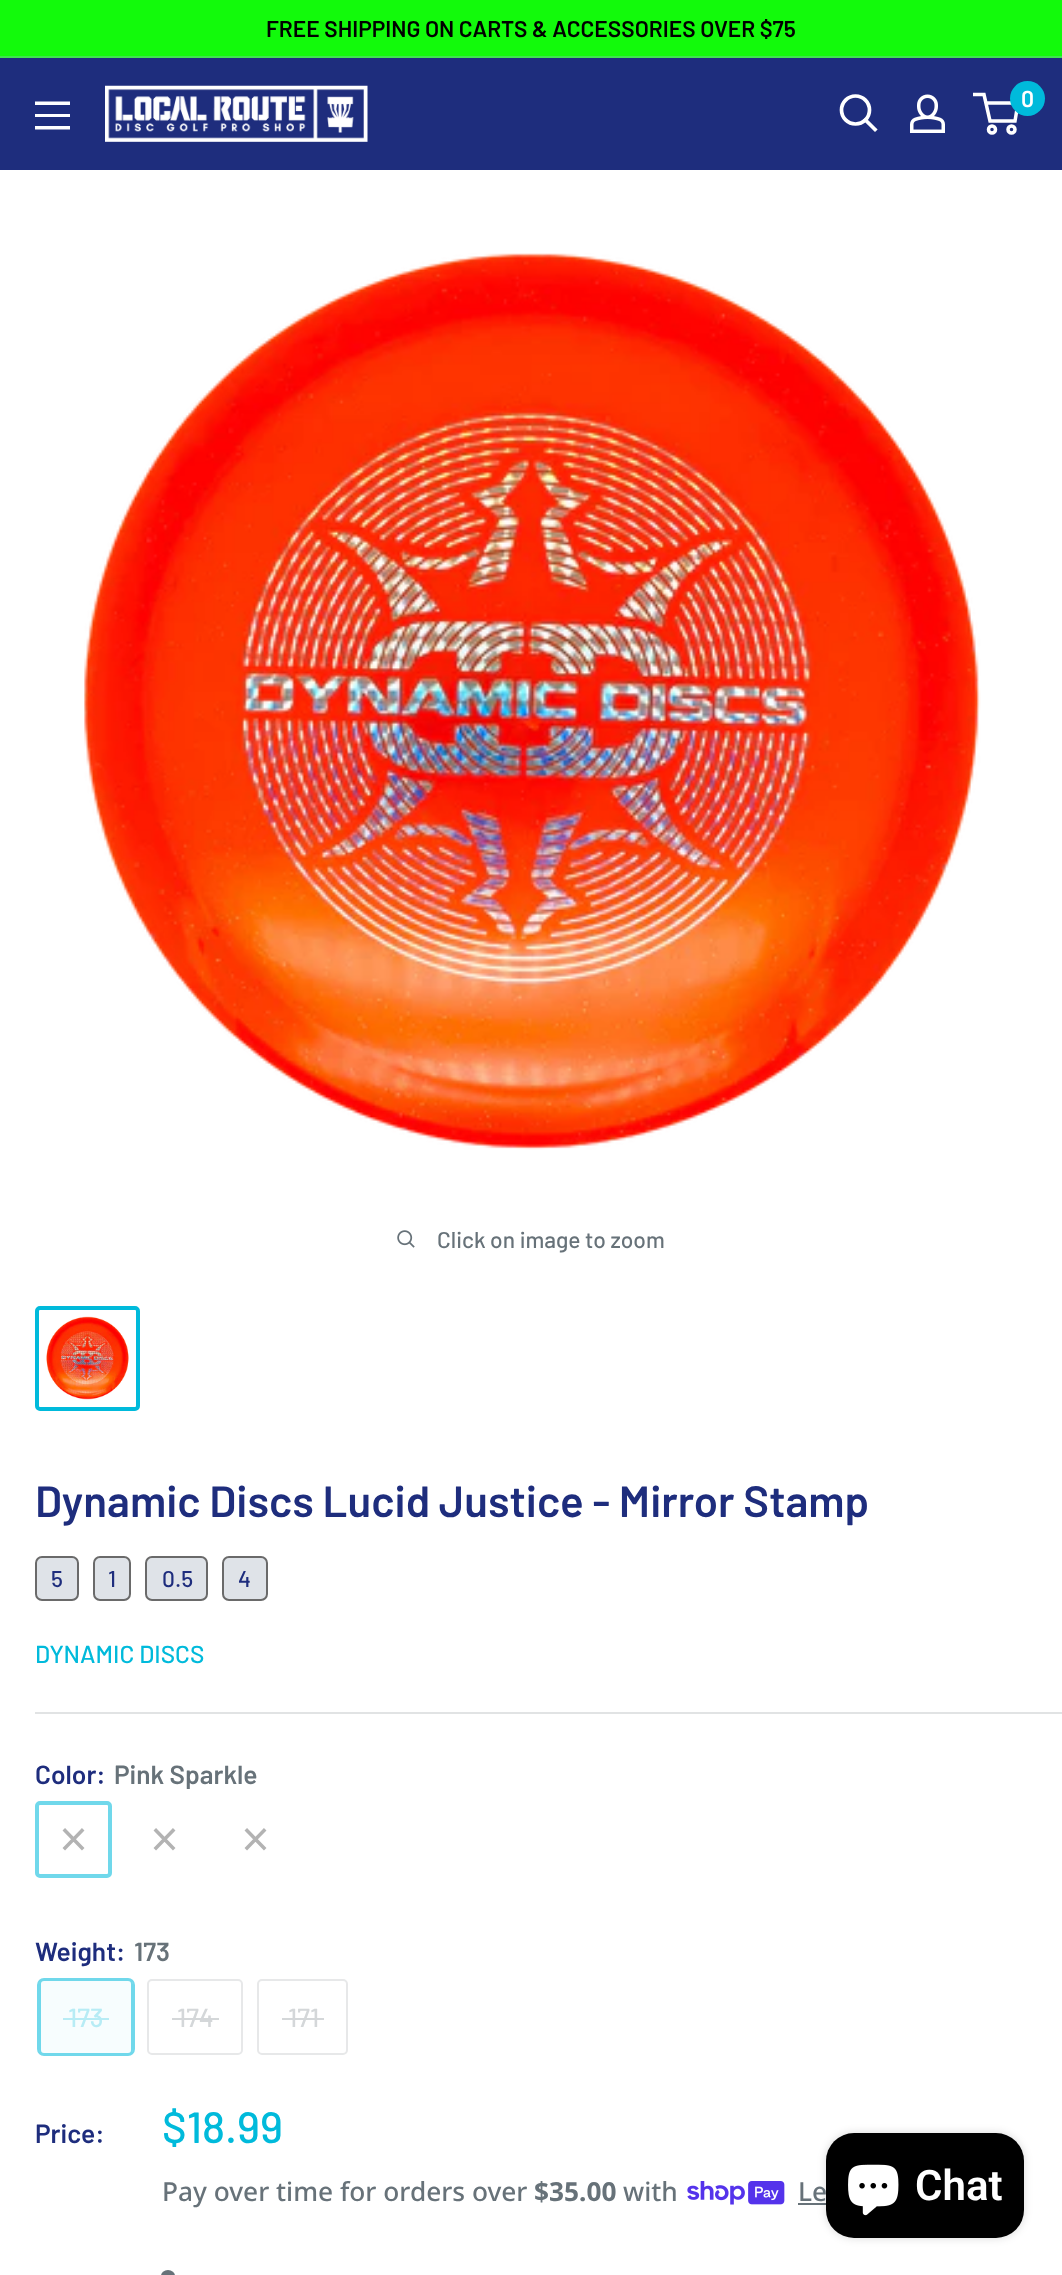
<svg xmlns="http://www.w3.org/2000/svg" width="1062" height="2275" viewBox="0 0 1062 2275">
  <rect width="100%" height="100%" fill="#12fa0b"/>
  <path d="M0 56h1062v2H0z" fill="#3ee44f"/>
  <path d="M0 58h1062v112H0z" fill="#1e2d7d"/>
  <image x="105" y="85" width="263" height="57" href="img/1.png"/>
  <path d="M875 129.5L865.5 120" fill="none" stroke="#fff" stroke-width="3.7" stroke-linecap="square"/>
  <circle cx="855.5" cy="110" r="14" fill="none" stroke="#fff" stroke-width="3.7"/>
  <image x="910" y="94" width="35" height="39" href="img/2.png"/>
  <circle cx="992" cy="129.5" r="3.5" fill="none" stroke="#fff" stroke-width="3.5"/>
  <circle cx="1011.5" cy="129.5" r="3.5" fill="none" stroke="#fff" stroke-width="3.5"/>
  <path d="M986 103H1018L1015 121H990L984 94.5H973" fill="none" stroke="#fff" stroke-width="3.5"/>
  <circle cx="1027.5" cy="98.5" r="17.5" fill="#00badb"/>
  <path d="M35 126H70V129.5H35ZM35 101.5H70V105H35ZM35 114H70V117H35Z" fill="#fff" fill-rule="evenodd"/>
  <path d="M0 170h1062v2105H0z" fill="#fff"/>
  <image x="84" y="253" width="897" height="897" href="img/3.png"/>
  <image x="397" y="1230" width="18" height="18" href="img/4.png"/>
  <rect x="37" y="1308" width="101" height="101" rx="3" fill="none" stroke="#00badb" stroke-width="4"/>
  <image x="46" y="1316" width="83" height="84" href="img/5.png"/>
  <rect x="36" y="1557" width="42" height="43" rx="6" fill="#dfe3e8" stroke="#6a6a6a" stroke-width="2"/>
  <rect x="94" y="1557" width="36" height="43" rx="6" fill="#dfe3e8" stroke="#6a6a6a" stroke-width="2"/>
  <rect x="146" y="1557" width="61" height="43" rx="6" fill="#dfe3e8" stroke="#6a6a6a" stroke-width="2"/>
  <rect x="223" y="1557" width="44" height="43" rx="6" fill="#dfe3e8" stroke="#6a6a6a" stroke-width="2"/>
  <path d="M35 1712h1027v2H35z" fill="#e1e3e4"/>
  <rect x="37" y="1803" width="73" height="73" rx="3" fill="none" stroke="#70d8eb" stroke-width="4"/>
  <path d="M82 1830.5L65 1848M65 1830.5L82 1848" fill="none" stroke="#b3b3b3" stroke-width="3.5" stroke-linecap="square"/>
  <path d="M173 1830.5L156 1848M156 1830.5L173 1848" fill="none" stroke="#b3b3b3" stroke-width="3.5" stroke-linecap="square"/>
  <path d="M264 1830.5L247 1848M247 1830.5L264 1848" fill="none" stroke="#b3b3b3" stroke-width="3.5" stroke-linecap="square"/>
  <rect x="38" y="1979" width="96" height="76" rx="6" fill="none" stroke="#70d8eb" stroke-width="2"/>
  <path d="M39 1979h94v76H39z" fill="#70d8eb0f"/>
  <rect x="40" y="1980" width="92" height="74" rx="4" fill="none" stroke="#70d8eb" stroke-width="2"/>
  <path d="M63 2018h46v2H63z" fill="#b7ecf5"/>
  <rect x="148" y="1980" width="94" height="74" rx="4" fill="none" stroke="#e7e8e9" stroke-width="2"/>
  <path d="M172 2018h47v2H172z" fill="#d4d7d9"/>
  <rect x="258" y="1980" width="89" height="74" rx="4" fill="none" stroke="#e7e8e9" stroke-width="2"/>
  <path d="M282 2018h42v2H282z" fill="#d4d7d9"/>
  <image x="687" y="2181" width="98" height="24" href="img/6.png"/>
  <path d="M798 2203h28v2H798z" fill="#677279"/>
  <rect x="161" y="2270" width="14" height="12" rx="7" fill="#677279"/>
  <rect x="826" y="2133" width="198" height="105" rx="28" fill="#00000026" filter="blur(4.5px)"/>
  <rect x="826" y="2133" width="198" height="105" rx="28" fill="#000"/>
  <image x="848" y="2164" width="51" height="52" href="img/7.png"/>
  <text x="266" y="37" font-family="Barlow" font-size="22.75" font-weight="600" fill="#000">FREE SHIPPING ON CARTS &amp; ACCESSORIES OVER $75</text>
  <text x="1021" y="107" font-family="Barlow" font-size="23" font-weight="600" fill="#fff">0</text>
  <text x="437" y="1248" font-family="Barlow" font-size="22.75" font-weight="500" fill="#677279">Click on image to zoom</text>
  <text x="35" y="1517" font-family="Barlow" font-size="43.75" font-weight="600" fill="#1e2d7d">Dynamic Discs Lucid Justice - Mirror Stamp</text>
  <g font-family="Barlow" font-size="22.75" font-weight="500" fill="#1e2d7d">
    <text x="51" y="1587">5</text>
    <text x="108" y="1587">1</text>
    <text x="162" y="1587">0.5</text>
    <text x="238" y="1587">4</text>
  </g>
  <text x="35" y="1663" font-family="Barlow" font-size="24.5" font-weight="500" fill="#00badb">DYNAMIC DISCS</text>
  <text x="35" y="1784" font-family="Barlow" font-size="26.25" font-weight="600" fill="#1e2d7d">Color:</text>
  <text x="114" y="1784" font-family="Barlow" font-size="26.25" font-weight="600" fill="#677279">Pink Sparkle</text>
  <text x="35" y="1961" font-family="Barlow" font-size="26.25" font-weight="600" fill="#1e2d7d">Weight:</text>
  <text x="134" y="1961" font-family="Barlow" font-size="26.25" font-weight="600" fill="#677279">173</text>
  <text x="68" y="2027" font-family="Barlow" font-size="26.25" font-weight="500" fill="#b7ecf5">173</text>
  <g font-family="Barlow" font-size="26.25" font-weight="500" fill="#d4d7d9">
    <text x="177" y="2027">174</text>
    <text x="288" y="2027">171</text>
  </g>
  <text x="35" y="2143" font-family="Barlow" font-size="26.25" font-weight="600" fill="#1e2d7d">Price:</text>
  <text x="162" y="2143" font-family="Barlow" font-size="43.75" font-weight="500" fill="#00badb">$18.99</text>
  <text x="162" y="2201" font-family="Noto Sans" font-size="26.25" font-weight="500" fill="#677279">Pay over time for orders over</text>
  <text x="534" y="2201" font-family="Noto Sans" font-size="26.25" font-weight="bold" fill="#677279">$35.00</text>
  <g font-family="Noto Sans" font-size="26.25" font-weight="500" fill="#677279">
    <text x="623" y="2201">with</text>
    <text x="798" y="2201">Le</text>
  </g>
  <text x="915" y="2200" font-family="Roboto" font-size="42" font-weight="600" fill="#fff">Chat</text>
</svg>
